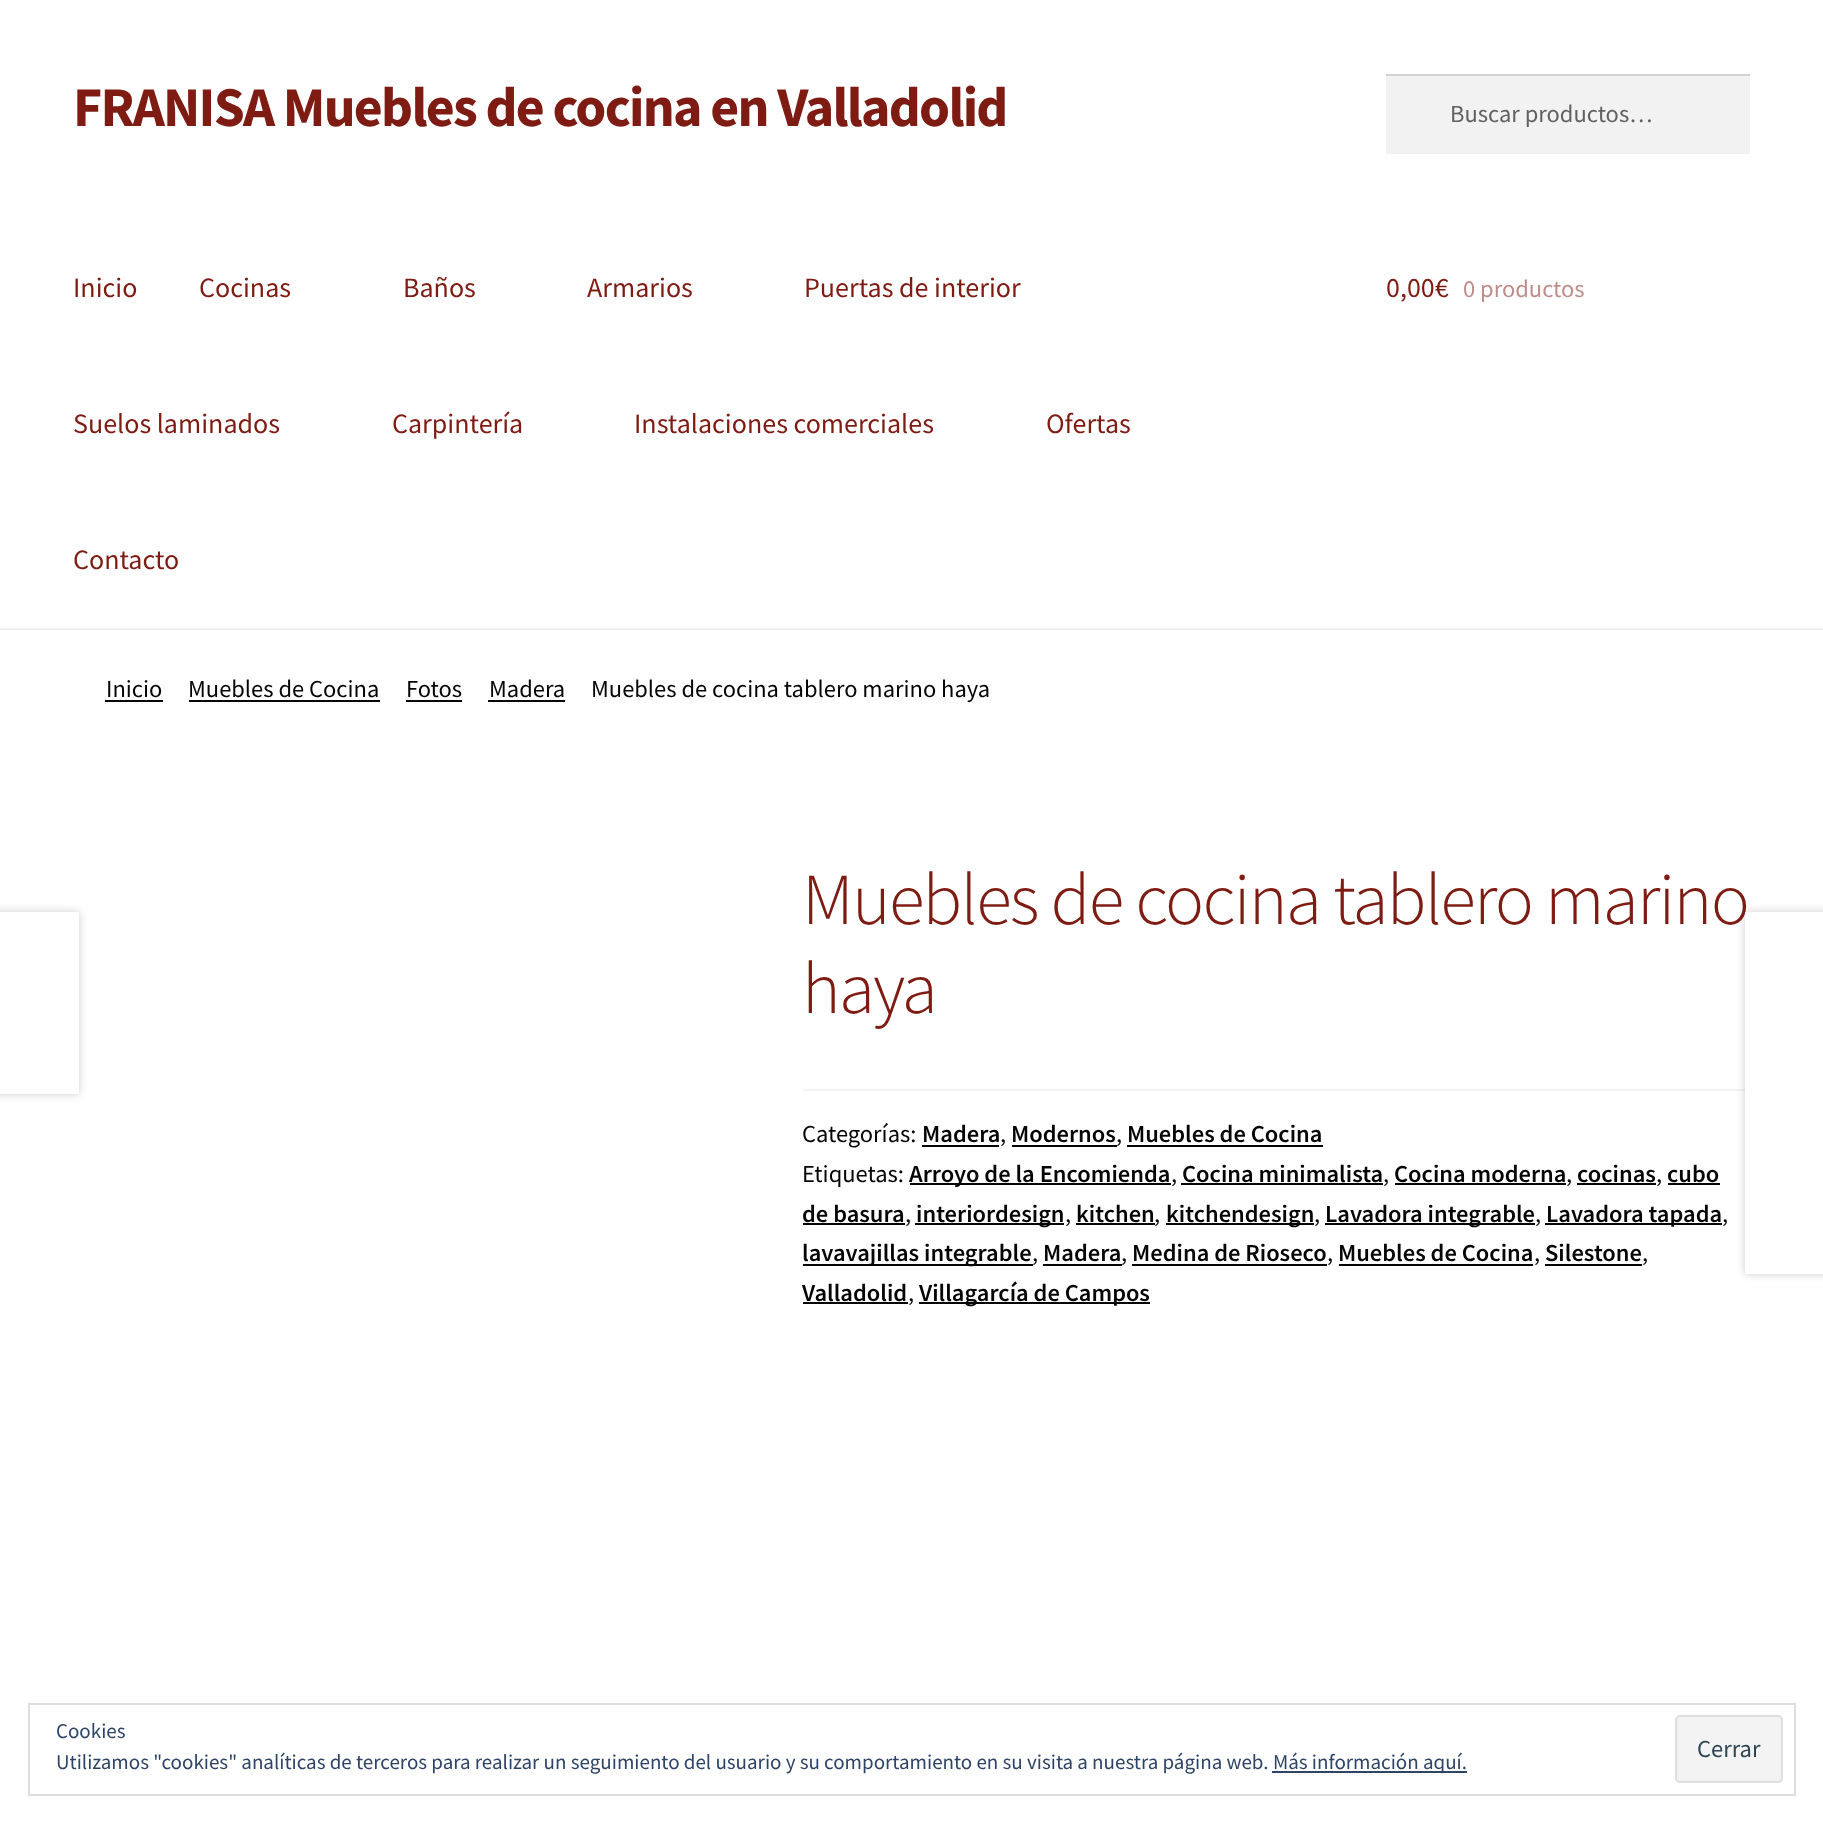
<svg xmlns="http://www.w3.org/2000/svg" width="1823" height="1823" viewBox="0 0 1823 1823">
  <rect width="100%" height="100%" fill="#fff"/>
  <path d="M0 628h1823v2H0z" fill="#f0f0f0"/>
  <path d="M1386 76h364v78H1386z" fill="#f2f2f2"/>
  <path d="M1386 74h364v2H1386z" fill="#d4d4d4"/>
  <path d="M105 700h58v2H105z" fill="#050505"/>
  <path d="M189 700h191v2H189z" fill="#050505"/>
  <path d="M406 700h56v2H406z" fill="#050505"/>
  <path d="M488 700h77v2H488z" fill="#050505"/>
  <path d="M803 1089h947v2H803z" fill="#f2f2f2"/>
  <path d="M922 1145h77v2H922z" fill="#050505"/>
  <path d="M1012 1145h105v2H1012z" fill="#050505"/>
  <path d="M1127 1145h196v2H1127z" fill="#050505"/>
  <path d="M910 1183h261v2H910z" fill="#050505"/>
  <path d="M1181 1183h202v2H1181z" fill="#050505"/>
  <path d="M1395 1183h171v2H1395z" fill="#050505"/>
  <path d="M1577 1183h79v2H1577z" fill="#050505"/>
  <path d="M1668 1183h52v2H1668z" fill="#050505"/>
  <path d="M803 1223h102v2H803z" fill="#050505"/>
  <path d="M915 1223h149v2H915z" fill="#050505"/>
  <path d="M1076 1223h79v2H1076z" fill="#050505"/>
  <path d="M1166 1223h148v2H1166z" fill="#050505"/>
  <path d="M1325 1223h210v2H1325z" fill="#050505"/>
  <path d="M1545 1223h177v2H1545z" fill="#050505"/>
  <path d="M803 1264h230v2H803z" fill="#050505"/>
  <path d="M1043 1264h79v2H1043z" fill="#050505"/>
  <path d="M1132 1264h195v2H1132z" fill="#050505"/>
  <path d="M1339 1264h194v2H1339z" fill="#050505"/>
  <path d="M1545 1264h97v2H1545z" fill="#050505"/>
  <path d="M803 1302h105v2H803z" fill="#050505"/>
  <path d="M919 1302h231v2H919z" fill="#050505"/>
  <path d="M-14 912h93v182H-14z" fill="#00000033" filter="blur(4.5px)"/>
  <path d="M0 912h79v182H0z" fill="#fff"/>
  <path d="M1745 912h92v362H1745z" fill="#00000033" filter="blur(4.5px)"/>
  <path d="M29 1704h1766v91H29z" fill="none" stroke="#dedede" stroke-width="2"/>
  <rect x="1676" y="1716" width="106" height="66" rx="4" fill="#f3f3f3" stroke="#dedede" stroke-width="2"/>
  <path d="M1272 1771h195v2H1272z" fill="#2e4467"/>
  <text x="73" y="126" font-family="Source Sans Pro" font-size="56" font-weight="bold" letter-spacing="-1.75" fill="#7e1b12">FRANISA Muebles de cocina en Valladolid</text>
  <text x="1450" y="122" font-family="Source Sans Pro" font-size="24.5" fill="#616161">Buscar productos…</text>
  <g font-family="Source Sans Pro" font-size="28" fill="#7e1b12">
    <text x="73" y="297">Inicio</text>
    <text x="199" y="297">Cocinas</text>
    <text x="403" y="297">Baños</text>
    <text x="587" y="297">Armarios</text>
    <text x="804" y="297">Puertas de interior</text>
    <text x="73" y="433">Suelos laminados</text>
    <text x="392" y="433">Carpintería</text>
    <text x="634" y="433">Instalaciones comerciales</text>
    <text x="1046" y="433">Ofertas</text>
    <text x="73" y="569">Contacto</text>
    <text x="1386" y="297">0,00€</text>
  </g>
  <text x="1463" y="297" font-family="Source Sans Pro" font-size="24.5" fill="#bf8d89">0 productos</text>
  <g font-family="Source Sans Pro" font-size="24.5" fill="#050505">
    <text x="106" y="697">Inicio</text>
    <text x="188" y="697">Muebles de Cocina</text>
    <text x="406" y="697">Fotos</text>
    <text x="489" y="697">Madera</text>
    <text x="591" y="697">Muebles de cocina tablero marino haya</text>
  </g>
  <g font-family="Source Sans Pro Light" font-size="73.25" font-weight="300" letter-spacing="-1.75" fill="#7e1b12">
    <text x="802" y="924">Muebles de cocina tablero marino</text>
    <text x="802" y="1013">haya</text>
  </g>
  <text x="802" y="1142" font-family="Source Sans Pro" font-size="24.5" fill="#050505">Categorías:</text>
  <text x="922" y="1142" font-family="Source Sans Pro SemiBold" font-size="24.5" font-weight="600" fill="#050505">Madera</text>
  <text x="1000" y="1142" font-family="Source Sans Pro" font-size="24.5" fill="#050505">,</text>
  <text x="1011" y="1142" font-family="Source Sans Pro SemiBold" font-size="24.5" font-weight="600" fill="#050505">Modernos</text>
  <text x="1116" y="1142" font-family="Source Sans Pro" font-size="24.5" fill="#050505">,</text>
  <text x="1127" y="1142" font-family="Source Sans Pro SemiBold" font-size="24.5" font-weight="600" fill="#050505">Muebles de Cocina</text>
  <text x="802" y="1182" font-family="Source Sans Pro" font-size="24.5" fill="#050505">Etiquetas:</text>
  <text x="909" y="1182" font-family="Source Sans Pro SemiBold" font-size="24.5" font-weight="600" fill="#050505">Arroyo de la Encomienda</text>
  <text x="1171" y="1182" font-family="Source Sans Pro" font-size="24.5" fill="#050505">,</text>
  <text x="1182" y="1182" font-family="Source Sans Pro SemiBold" font-size="24.5" font-weight="600" fill="#050505">Cocina minimalista</text>
  <text x="1383" y="1182" font-family="Source Sans Pro" font-size="24.5" fill="#050505">,</text>
  <text x="1394" y="1182" font-family="Source Sans Pro SemiBold" font-size="24.5" font-weight="600" fill="#050505">Cocina moderna</text>
  <text x="1566" y="1182" font-family="Source Sans Pro" font-size="24.5" fill="#050505">,</text>
  <text x="1577" y="1182" font-family="Source Sans Pro SemiBold" font-size="24.5" font-weight="600" fill="#050505">cocinas</text>
  <text x="1656" y="1182" font-family="Source Sans Pro" font-size="24.5" fill="#050505">,</text>
  <g font-family="Source Sans Pro SemiBold" font-size="24.5" font-weight="600" fill="#050505">
    <text x="1667" y="1182">cubo</text>
    <text x="802" y="1222">de basura</text>
  </g>
  <text x="905" y="1222" font-family="Source Sans Pro" font-size="24.5" fill="#050505">,</text>
  <text x="916" y="1222" font-family="Source Sans Pro SemiBold" font-size="24.5" font-weight="600" fill="#050505">interiordesign</text>
  <text x="1065" y="1222" font-family="Source Sans Pro" font-size="24.5" fill="#050505">,</text>
  <text x="1076" y="1222" font-family="Source Sans Pro SemiBold" font-size="24.5" font-weight="600" fill="#050505">kitchen</text>
  <text x="1154" y="1222" font-family="Source Sans Pro" font-size="24.5" fill="#050505">,</text>
  <text x="1166" y="1222" font-family="Source Sans Pro SemiBold" font-size="24.5" font-weight="600" fill="#050505">kitchendesign</text>
  <text x="1314" y="1222" font-family="Source Sans Pro" font-size="24.5" fill="#050505">,</text>
  <text x="1325" y="1222" font-family="Source Sans Pro SemiBold" font-size="24.5" font-weight="600" fill="#050505">Lavadora integrable</text>
  <text x="1535" y="1222" font-family="Source Sans Pro" font-size="24.5" fill="#050505">,</text>
  <text x="1546" y="1222" font-family="Source Sans Pro SemiBold" font-size="24.5" font-weight="600" fill="#050505">Lavadora tapada</text>
  <text x="1722" y="1222" font-family="Source Sans Pro" font-size="24.5" fill="#050505">,</text>
  <text x="802" y="1261" font-family="Source Sans Pro SemiBold" font-size="24.5" font-weight="600" fill="#050505">lavavajillas integrable</text>
  <text x="1032" y="1261" font-family="Source Sans Pro" font-size="24.5" fill="#050505">,</text>
  <text x="1043" y="1261" font-family="Source Sans Pro SemiBold" font-size="24.5" font-weight="600" fill="#050505">Madera</text>
  <text x="1121" y="1261" font-family="Source Sans Pro" font-size="24.5" fill="#050505">,</text>
  <text x="1132" y="1261" font-family="Source Sans Pro SemiBold" font-size="24.5" font-weight="600" fill="#050505">Medina de Rioseco</text>
  <text x="1327" y="1261" font-family="Source Sans Pro" font-size="24.5" fill="#050505">,</text>
  <text x="1338" y="1261" font-family="Source Sans Pro SemiBold" font-size="24.5" font-weight="600" fill="#050505">Muebles de Cocina</text>
  <text x="1534" y="1261" font-family="Source Sans Pro" font-size="24.5" fill="#050505">,</text>
  <text x="1545" y="1261" font-family="Source Sans Pro SemiBold" font-size="24.5" font-weight="600" fill="#050505">Silestone</text>
  <text x="1642" y="1261" font-family="Source Sans Pro" font-size="24.5" fill="#050505">,</text>
  <text x="802" y="1301" font-family="Source Sans Pro SemiBold" font-size="24.5" font-weight="600" fill="#050505">Valladolid</text>
  <text x="908" y="1301" font-family="Source Sans Pro" font-size="24.5" fill="#050505">,</text>
  <text x="919" y="1301" font-family="Source Sans Pro SemiBold" font-size="24.5" font-weight="600" fill="#050505">Villagarcía de Campos</text>
  <path d="M1745 912h78v362H1745z" fill="#fff"/>
  <text x="56" y="1738" font-family="Source Sans Pro" font-size="21" fill="#2e4467">Cookies</text>
  <text x="1697" y="1757" font-family="Source Sans Pro" font-size="24.5" fill="#2e4453">Cerrar</text>
  <g font-family="Source Sans Pro" font-size="21" fill="#2e4467">
    <text x="56" y="1769">Utilizamos "cookies" analíticas de terceros para realizar un seguimiento del usuario y su comportamiento en su visita a nuestra página web.</text>
    <text x="1273" y="1769">Más información aquí.</text>
  </g>
</svg>
